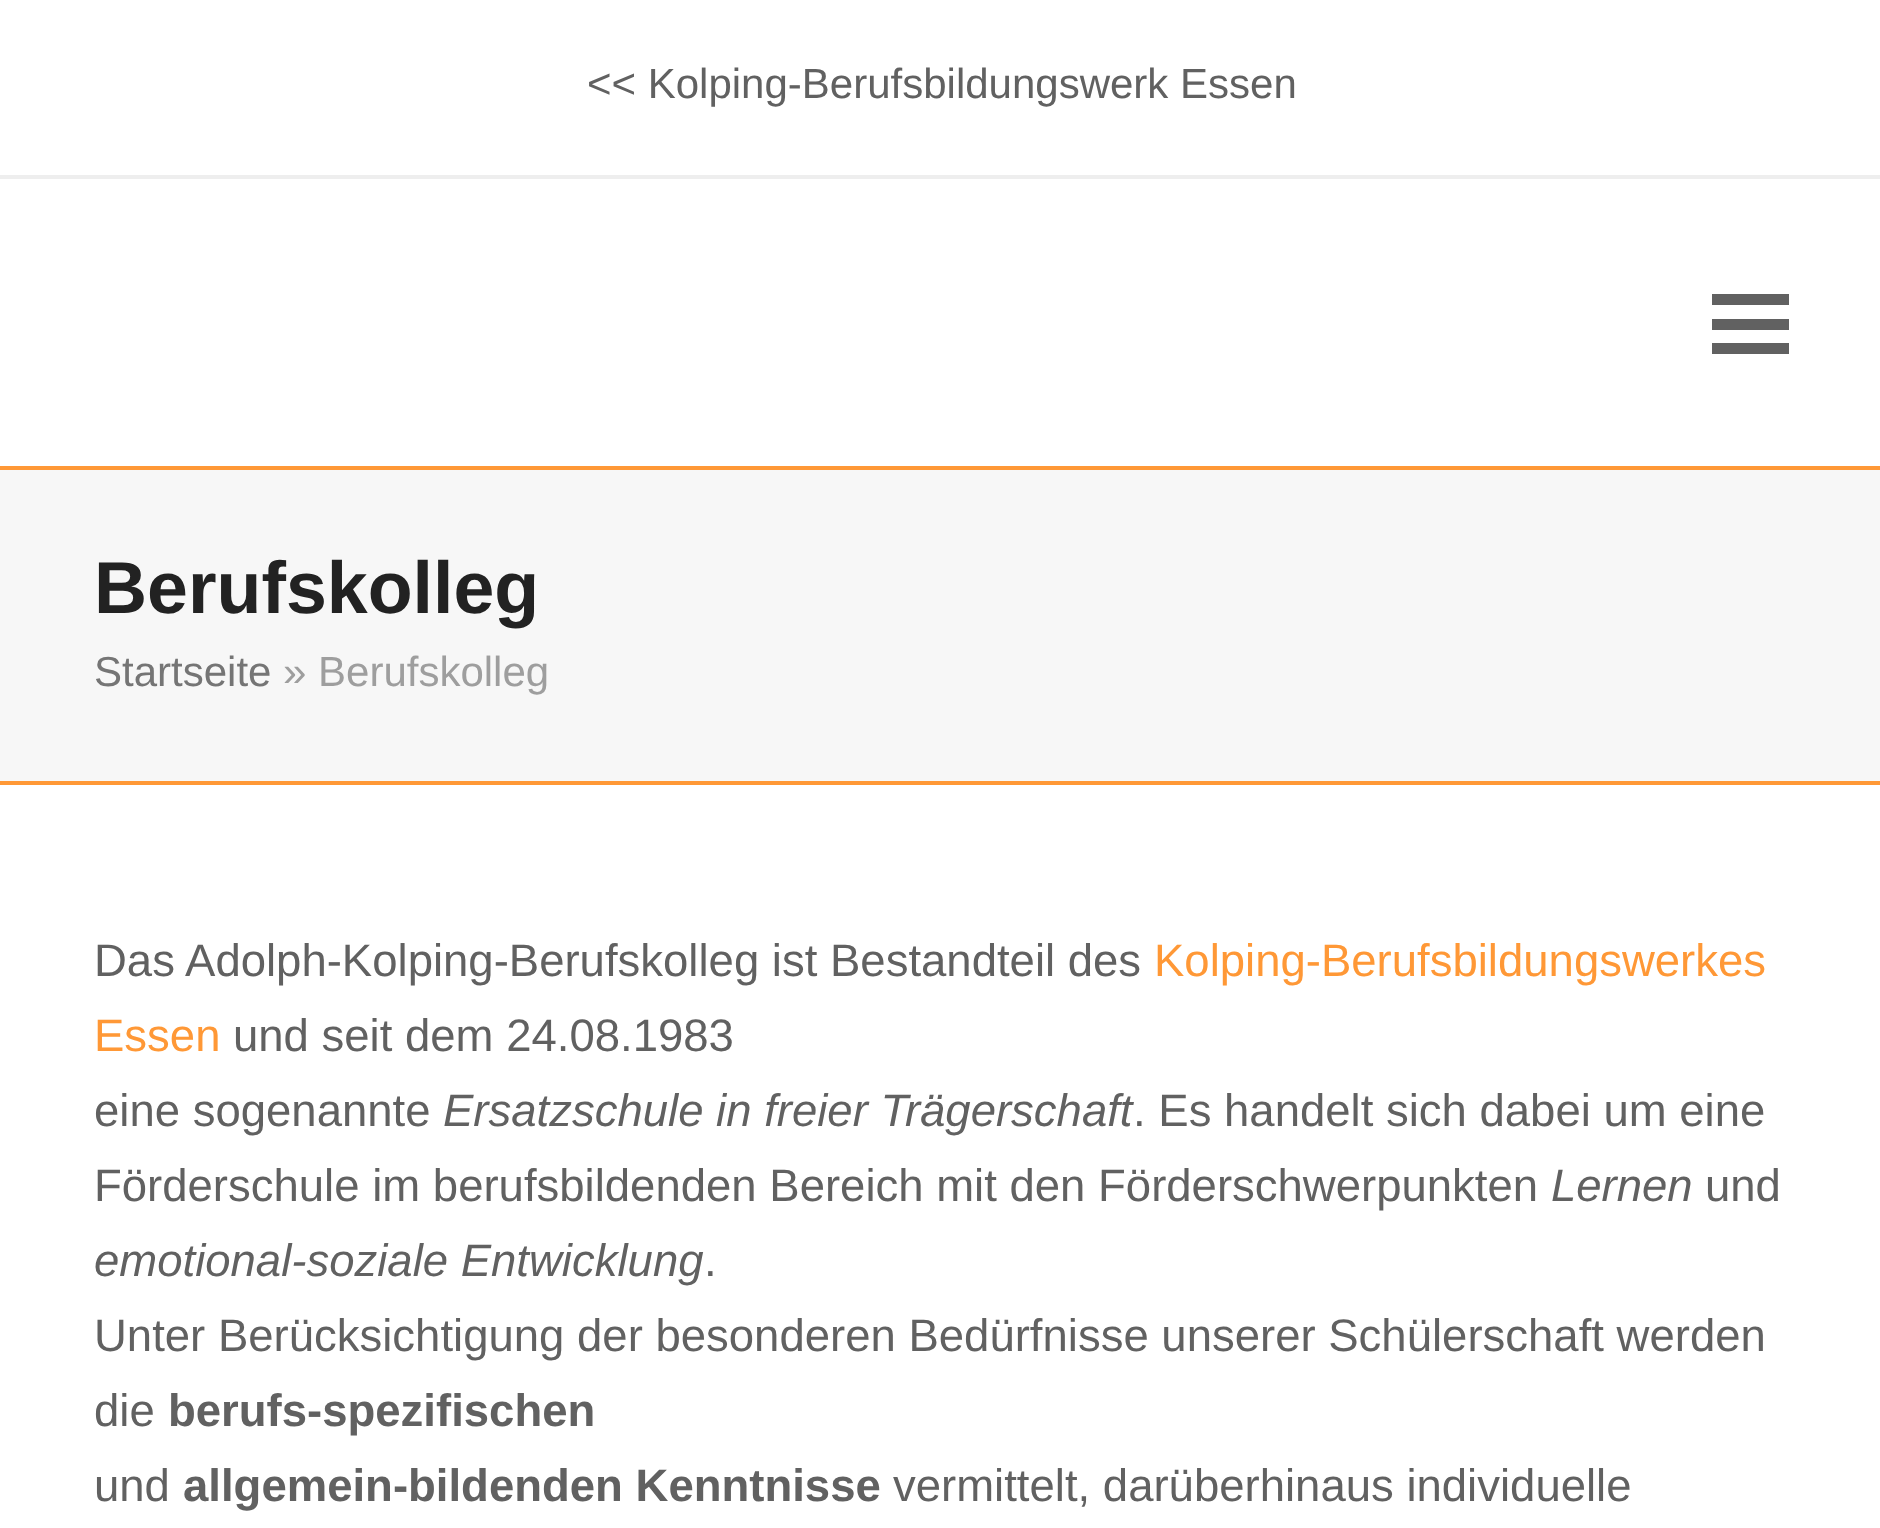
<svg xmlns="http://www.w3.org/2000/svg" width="1880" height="1528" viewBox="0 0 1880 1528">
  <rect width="100%" height="100%" fill="#fff"/>
  <path d="M0 175h1880v4H0z" fill="#eee"/>
  <path d="M1712 319h77v11H1712z" fill="#616161"/>
  <path d="M1712 294h77v11H1712z" fill="#616161"/>
  <path d="M1712 343h77v11H1712z" fill="#616161"/>
  <path d="M0 470h1880v311H0z" fill="#f7f7f7"/>
  <path d="M0 466h1880v4H0z" fill="#ff9836"/>
  <path d="M0 781h1880v4H0z" fill="#ff9836"/>
  <text x="587" y="98" font-family="Liberation Sans" font-size="42" fill="#616161">&lt;&lt; Kolping-Berufsbildungswerk Essen</text>
  <text x="94" y="613" font-family="Liberation Sans" font-size="73.5" font-weight="bold" fill="#222">Berufskolleg</text>
  <text x="94" y="686" font-family="Liberation Sans" font-size="42" fill="#757575">Startseite</text>
  <text x="283" y="686" font-family="Liberation Sans" font-size="42" fill="#9e9e9e">» Berufskolleg</text>
  <text x="94" y="976" font-family="Liberation Sans" font-size="45.5" fill="#616161">Das Adolph-Kolping-Berufskolleg ist Bestandteil des</text>
  <g font-family="Liberation Sans" font-size="45.5" fill="#ff9836">
    <text x="1154" y="976">Kolping-Berufsbildungswerkes</text>
    <text x="94" y="1051">Essen</text>
  </g>
  <g font-family="Liberation Sans" font-size="45.5" fill="#616161">
    <text x="233" y="1051">und seit dem 24.08.1983</text>
    <text x="94" y="1126">eine sogenannte</text>
  </g>
  <text x="443" y="1126" font-family="Liberation Sans" font-size="45.5" font-style="italic" fill="#616161">Ersatzschule in freier Trägerschaft</text>
  <g font-family="Liberation Sans" font-size="45.5" fill="#616161">
    <text x="1133" y="1126">. Es handelt sich dabei um eine</text>
    <text x="94" y="1201">Förderschule im berufsbildenden Bereich mit den Förderschwerpunkten</text>
  </g>
  <text x="1551" y="1201" font-family="Liberation Sans" font-size="45.5" font-style="italic" fill="#616161">Lernen</text>
  <text x="1705" y="1201" font-family="Liberation Sans" font-size="45.5" fill="#616161">und</text>
  <text x="94" y="1276" font-family="Liberation Sans" font-size="45.5" font-style="italic" fill="#616161">emotional-soziale Entwicklung</text>
  <g font-family="Liberation Sans" font-size="45.5" fill="#616161">
    <text x="704" y="1276">.</text>
    <text x="94" y="1351">Unter Berücksichtigung der besonderen Bedürfnisse unserer Schülerschaft werden</text>
    <text x="94" y="1426">die</text>
  </g>
  <text x="168" y="1426" font-family="Liberation Sans" font-size="45.5" font-weight="bold" fill="#616161">berufs-spezifischen</text>
  <text x="94" y="1501" font-family="Liberation Sans" font-size="45.5" fill="#616161">und</text>
  <text x="183" y="1501" font-family="Liberation Sans" font-size="45.5" font-weight="bold" fill="#616161">allgemein-bildenden Kenntnisse</text>
  <text x="893" y="1501" font-family="Liberation Sans" font-size="45.5" fill="#616161">vermittelt, darüberhinaus individuelle</text>
</svg>
